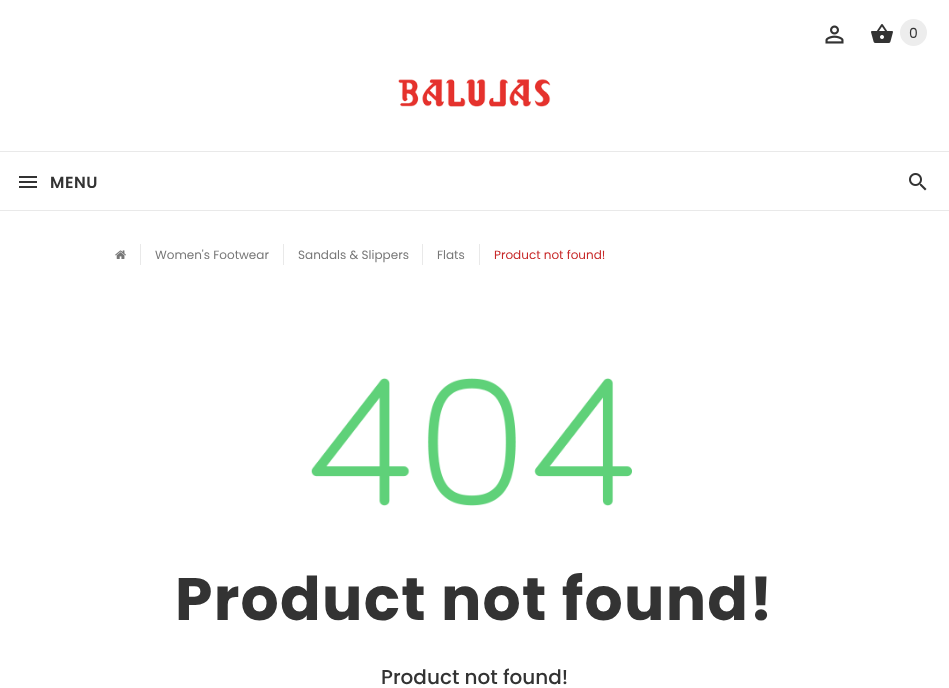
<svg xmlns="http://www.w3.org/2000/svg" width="949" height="688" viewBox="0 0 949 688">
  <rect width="100%" height="100%" fill="#fff"/>
  <image x="825" y="25" width="19" height="19" href="img/1.png"/>
  <image x="871" y="24" width="22" height="19" href="img/2.png"/>
  <circle cx="913.5" cy="32.5" r="13.5" fill="#ededed"/>
  <image x="398" y="79" width="153" height="28" href="img/3.png"/>
  <path d="M0 151h949v1H0z" fill="#e9e9e9"/>
  <path d="M0 210h949v1H0z" fill="#e9e9e9"/>
  <path d="M19 176h18v2H19z" fill="#333"/>
  <path d="M19 181h18v2H19z" fill="#333"/>
  <path d="M19 186h18v2H19z" fill="#333"/>
  <image x="909" y="173" width="18" height="18" href="img/4.png"/>
  <path d="M140 244h1v21H140z" fill="#e9e9e9"/>
  <image x="115" y="250" width="11" height="9" href="img/5.png"/>
  <path d="M283 244h1v21H283z" fill="#e9e9e9"/>
  <path d="M422 244h1v21H422z" fill="#e9e9e9"/>
  <path d="M479 244h1v21H479z" fill="#e9e9e9"/>
  <image x="311" y="378" width="321" height="128" href="img/6.png"/>
  <text x="909" y="38" font-family="Poppins" font-size="14" fill="#333">0</text>
  <text x="50" y="188" font-family="Poppins" font-size="16" font-weight="600" letter-spacing="0.5" fill="#333">MENU</text>
  <g font-family="Poppins" font-size="12" fill="#777">
    <text x="155" y="259">Women's Footwear</text>
    <text x="298" y="259">Sandals &amp; Slippers</text>
    <text x="437" y="259">Flats</text>
  </g>
  <text x="494" y="259" font-family="Poppins" font-size="12" fill="#c72828">Product not found!</text>
  <text x="175" y="620" font-family="Poppins" font-size="60" font-weight="bold" letter-spacing="1.25" fill="#333">Product not found!</text>
  <text x="381" y="684" font-family="Poppins" font-size="20" font-weight="500" fill="#333">Product not found!</text>
</svg>
